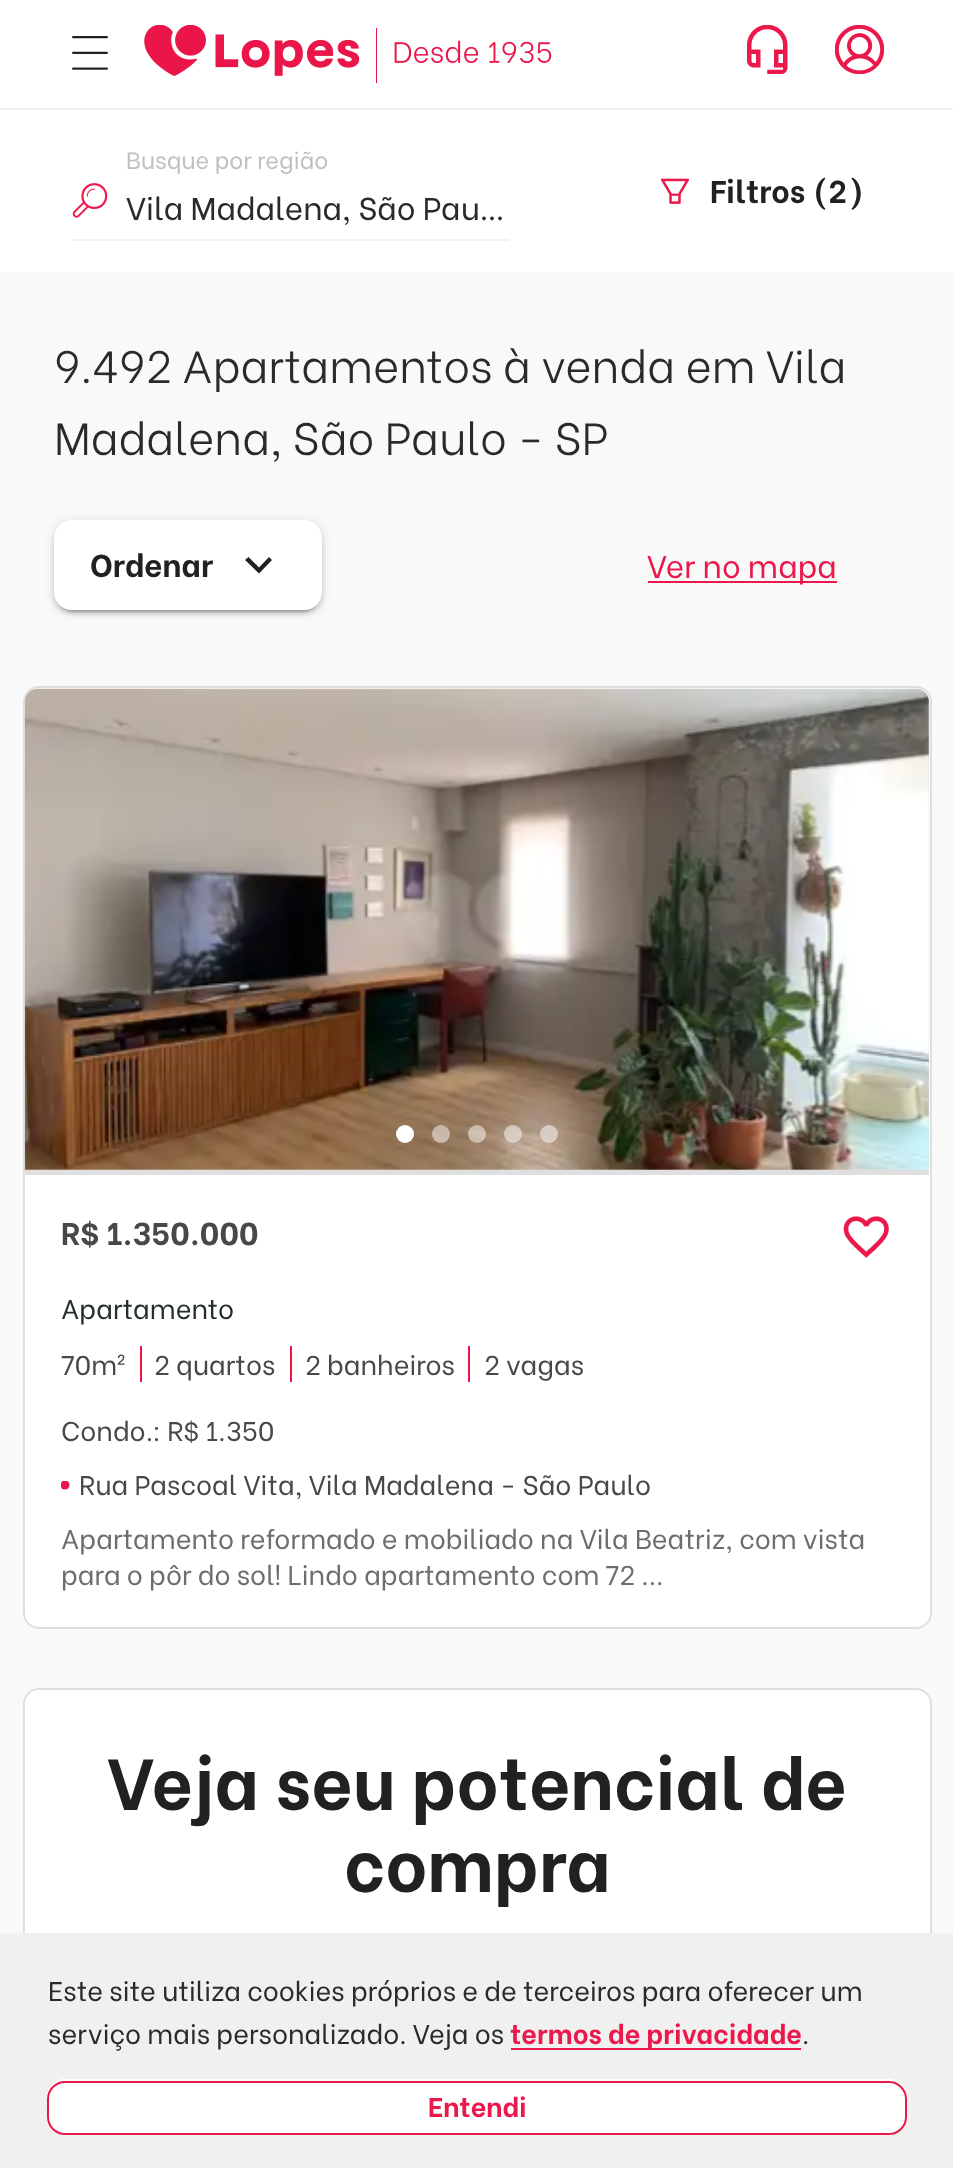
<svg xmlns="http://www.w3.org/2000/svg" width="953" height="2168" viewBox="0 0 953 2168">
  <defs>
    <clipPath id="clip1"><path d="M61 1481h9v9H61z"/></clipPath>
  </defs>
  <rect width="100%" height="100%" fill="#fff"/>
  <path d="M0 108h953v2H0z" fill="#f2f2f2"/>
  <image x="72" y="36" width="36" height="34" href="img/1.png"/>
  <image x="144" y="25" width="408" height="58" href="img/2.png"/>
  <image x="747" y="25" width="41" height="49" href="img/3.png"/>
  <image x="835" y="25" width="49" height="49" href="img/4.png"/>
  <image x="72" y="183" width="36" height="35" href="img/5.png"/>
  <path d="M72 239h437v2H72z" fill="#f2f2f2"/>
  <image x="661" y="178" width="28" height="26" href="img/6.png"/>
  <path d="M0 272h953v1661H0z" fill="#f9f9f9"/>
  <rect x="54" y="522" width="268" height="90" rx="18" fill="#0000001f" filter="blur(5.5px)"/>
  <rect x="54" y="524" width="268" height="90" rx="18" fill="#00000024" filter="blur(2px)"/>
  <rect x="59" y="531" width="258" height="81" rx="14" fill="#00000033" filter="blur(1px)"/>
  <rect x="54" y="520" width="268" height="90" rx="18" fill="#fff"/>
  <path d="M269 557L272 560L259 573.5L245 560L248.5 557L259 567.5Z" fill="#212121"/>
  <path d="M648 581h189v2H648z" fill="#eb194b"/>
  <rect x="24" y="687" width="907" height="941" rx="15" fill="#fff" stroke="#dfdfdf" stroke-width="2"/>
  <path d="M39 689H915C922.5 689 929 695.5 929 703V1175H25V703C25 695.5 31.5 689 39 689Z" fill="#dfdfdf"/>
  <path d="M39 689H915C922.5 689 929 695.5 929 703V1170H25V703C25 695.5 31.5 689 39 689Z" fill="#dfdfdf"/>
  <image x="24" y="688" width="906" height="482" href="img/7.png"/>
  <circle cx="405" cy="1134" r="9" fill="#fff"/>
  <circle cx="441" cy="1134" r="9" fill="#ffffff80"/>
  <circle cx="477" cy="1134" r="9" fill="#ffffff80"/>
  <circle cx="513" cy="1134" r="9" fill="#ffffff80"/>
  <circle cx="549" cy="1134" r="9" fill="#ffffff80"/>
  <image x="843" y="1216" width="46" height="42" href="img/8.png"/>
  <path d="M140 1346h2v36H140z" fill="#eb194b"/>
  <path d="M290 1346h2v36H290z" fill="#eb194b"/>
  <path d="M468 1346h2v36H468z" fill="#eb194b"/>
  <g clip-path="url(#clip1)">
    <circle cx="65" cy="1485" r="4.5" fill="#eb194b"/>
  </g>
  <path d="M39 1688H916C925 1688 932 1695 932 1704V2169H23V1704C23 1695 30 1688 39 1688Z" fill="#fff"/>
  <rect x="24" y="1689" width="907" height="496" rx="15" fill="none" stroke="#dfdfdf" stroke-width="2"/>
  <path d="M0 1933h953v235H0z" fill="#f0f0f0"/>
  <path d="M511 2048h290v2H511z" fill="#eb194b"/>
  <rect x="47" y="2079" width="860" height="56" rx="18" fill="#fff"/>
  <rect x="48" y="2082" width="858" height="52" rx="17" fill="none" stroke="#eb194b" stroke-width="2"/>
  <text x="126" y="169" font-family="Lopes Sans" font-size="23.6" fill="#bfbfbf">Busque por região</text>
  <text x="126" y="220" font-family="Lopes Sans" font-size="31.5" fill="#2a2a2a">Vila Madalena, São Pau…</text>
  <text x="710" y="203" font-family="Lopes Sans" font-size="31.5" font-weight="bold" fill="#212121">Filtros (2)</text>
  <g font-family="Lopes Sans" font-size="45" font-weight="300" fill="#2a2a2a">
    <text x="54" y="383">9.492 Apartamentos à venda em Vila</text>
    <text x="54" y="455">Madalena, São Paulo - SP</text>
  </g>
  <text x="90" y="577" font-family="Lopes Sans" font-size="31.5" font-weight="bold" fill="#212121">Ordenar</text>
  <text x="647" y="578" font-family="Lopes Sans" font-size="31.5" fill="#eb194b">Ver no mapa</text>
  <text x="61" y="1245" font-family="Lopes Sans" font-size="31.5" font-weight="bold" fill="#484848">R$ 1.350.000</text>
  <text x="61" y="1319" font-family="Lopes Sans" font-size="27" fill="#242f2d">Apartamento</text>
  <g font-family="Lopes Sans" font-size="27" fill="#484848">
    <text x="61" y="1375">70m²</text>
    <text x="154" y="1375">2 quartos</text>
    <text x="305" y="1375">2 banheiros</text>
    <text x="484" y="1375">2 vagas</text>
    <text x="61" y="1441">Condo.: R$ 1.350</text>
    <text x="79" y="1495">Rua Pascoal Vita, Vila Madalena - São Paulo</text>
  </g>
  <g font-family="Lopes Sans" font-size="27" fill="#6d6d6d">
    <text x="61" y="1549">Apartamento reformado e mobiliado na Vila Beatriz, com vista</text>
    <text x="61" y="1585">para o pôr do sol! Lindo apartamento com 72 ...</text>
  </g>
  <g font-family="Lopes Sans" font-size="72" font-weight="bold" fill="#212121">
    <text x="107" y="1810">Veja seu potencial de</text>
    <text x="344" y="1892">compra</text>
  </g>
  <g font-family="Lopes Sans" font-size="27" fill="#2a2a2a">
    <text x="48" y="2001">Este site utiliza cookies próprios e de terceiros para oferecer um</text>
    <text x="48" y="2044">serviço mais personalizado. Veja os</text>
  </g>
  <text x="510" y="2044" font-family="Lopes Sans" font-size="27" font-weight="bold" fill="#eb194b">termos de privacidade</text>
  <text x="802" y="2044" font-family="Lopes Sans" font-size="27" fill="#2a2a2a">.</text>
  <text x="428" y="2117" font-family="Lopes Sans" font-size="27" font-weight="bold" fill="#eb194b">Entendi</text>
</svg>
